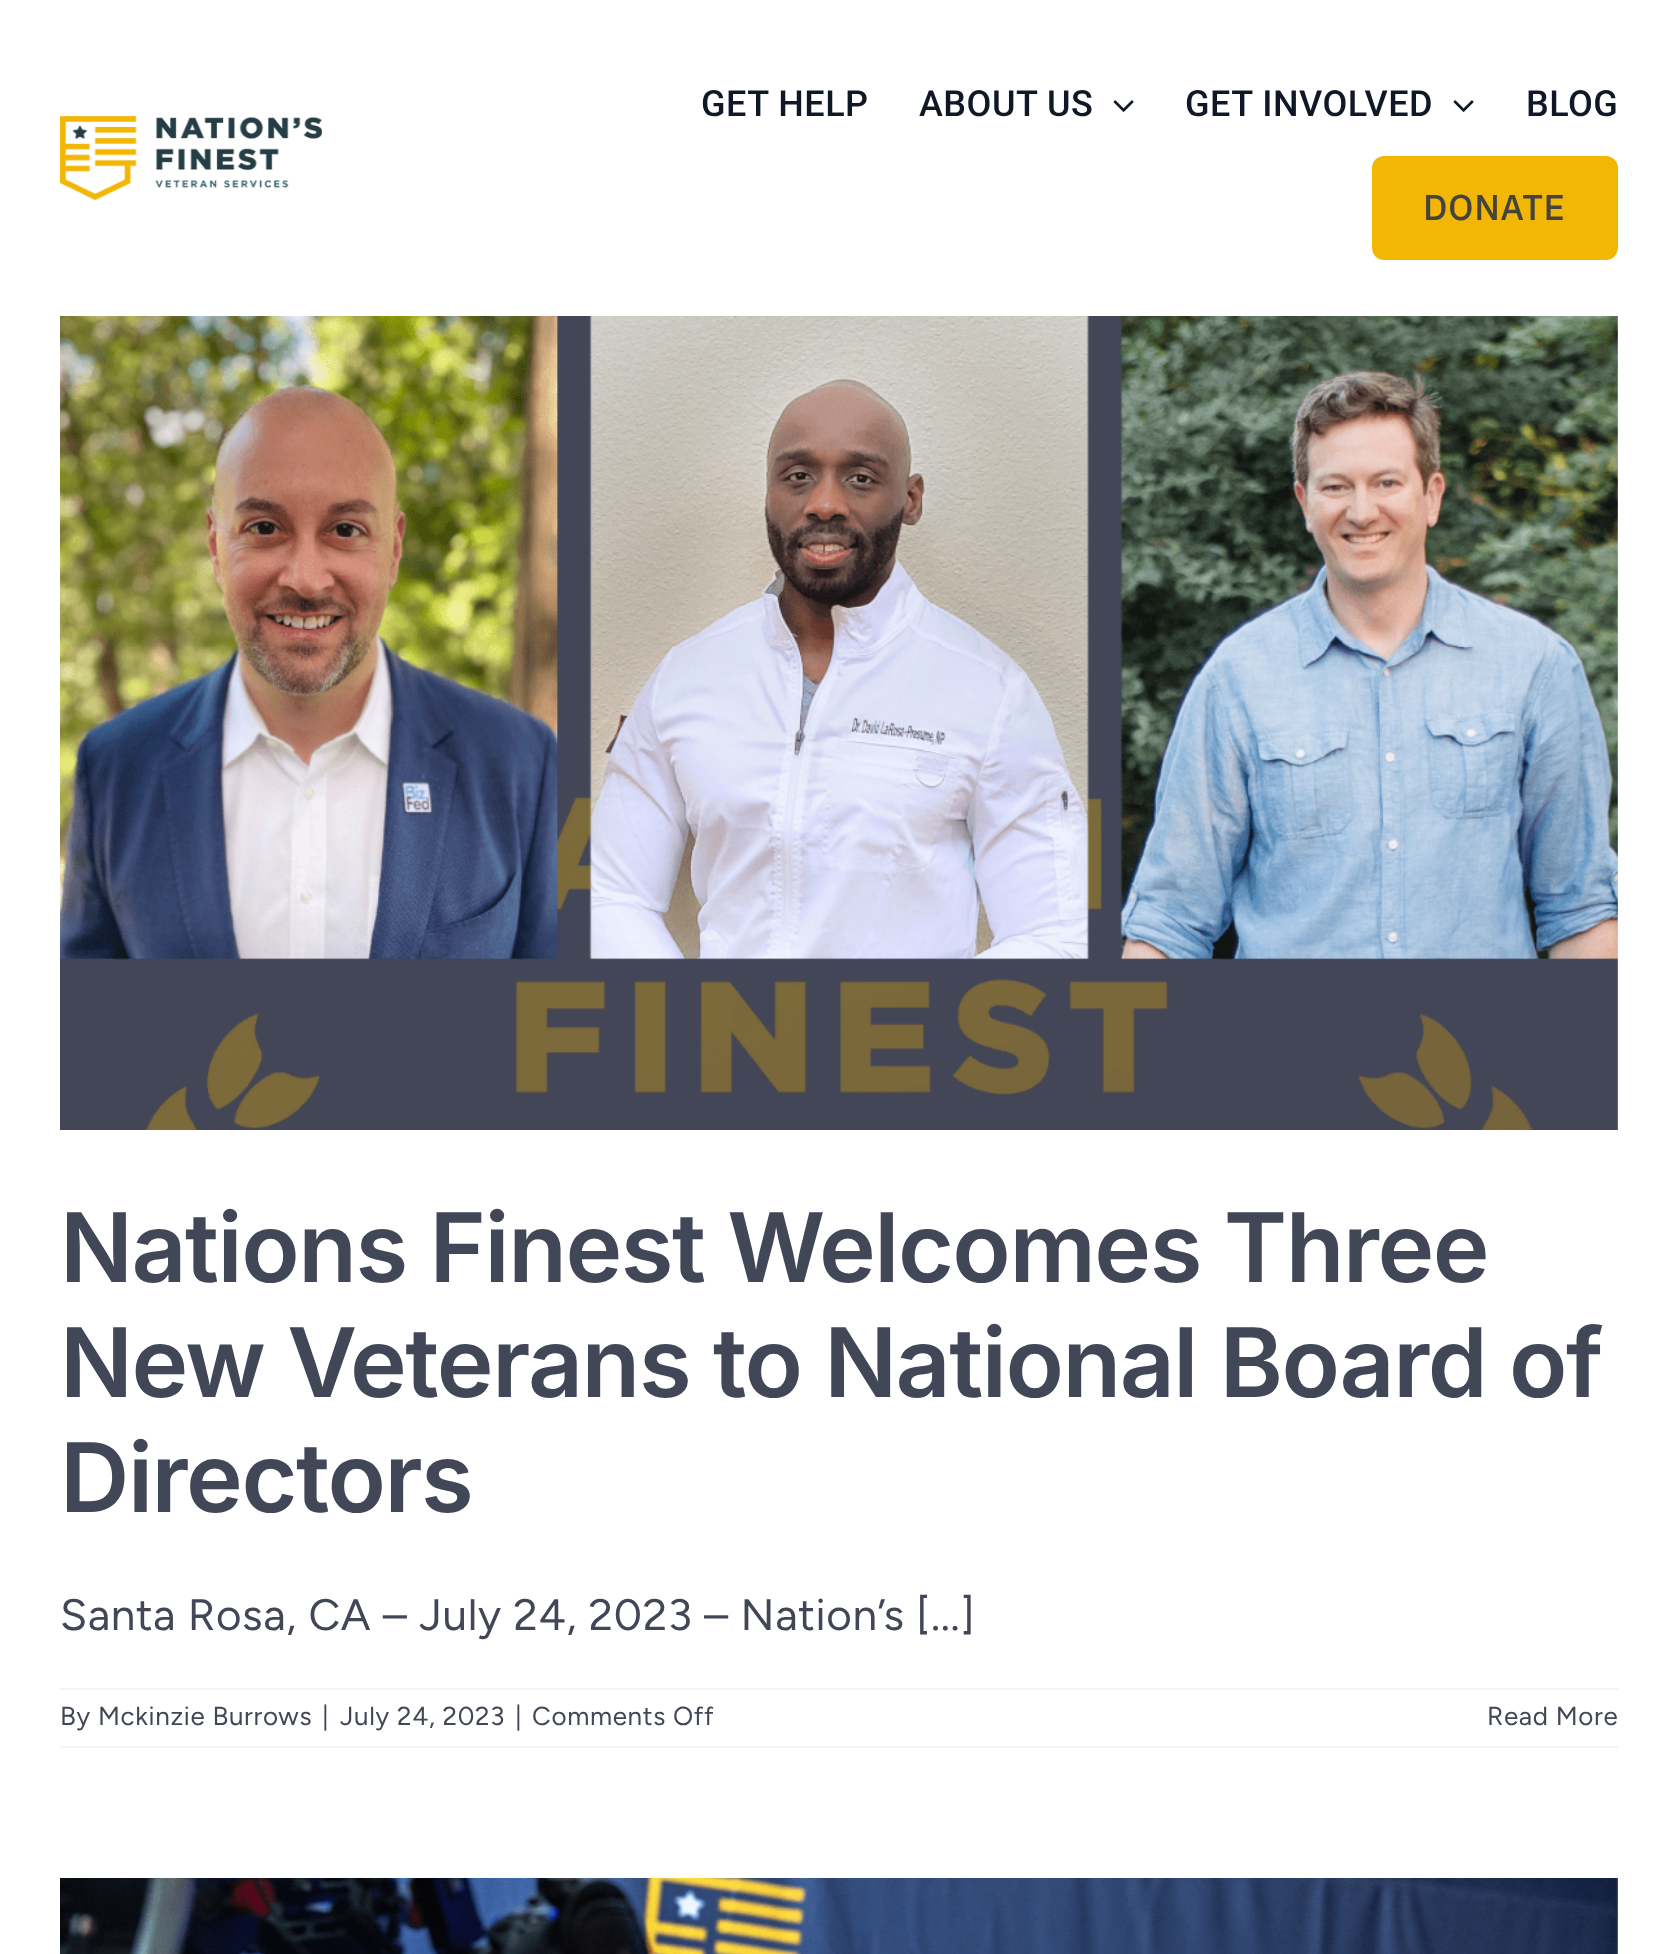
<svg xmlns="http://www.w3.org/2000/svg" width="1678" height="1954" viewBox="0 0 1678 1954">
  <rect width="100%" height="100%" fill="#fff"/>
  <image x="60" y="116" width="262" height="84" href="img/1.png"/>
  <image x="1113" y="100" width="21" height="12" href="img/2.png"/>
  <image x="1453" y="100" width="21" height="12" href="img/2.png"/>
  <rect x="1372" y="156" width="246" height="104" rx="12" fill="#f2b705"/>
  <image x="60" y="316" width="1558" height="814" href="img/3.png"/>
  <path d="M60 1688h1558v2H60z" fill="#f2f3f5"/>
  <path d="M60 1746h1558v2H60z" fill="#f2f3f5"/>
  <image x="60" y="1878" width="1558" height="76" href="img/4.png"/>
  <g font-family="Roboto" font-size="36" font-weight="500" letter-spacing="0.5" fill="#101827">
    <text x="701" y="116">GET HELP</text>
    <text x="919" y="116">ABOUT US</text>
    <text x="1185" y="116">GET INVOLVED</text>
    <text x="1526" y="116">BLOG</text>
  </g>
  <text x="1423" y="220" font-family="IBM Plex Sans" font-size="36" font-weight="500" letter-spacing="0.5" fill="#45433d">DONATE</text>
  <g font-family="Inter" font-size="96" font-weight="600" letter-spacing="-1.45" fill="#424757">
    <text x="60" y="1282">Nations Finest Welcomes Three</text>
    <text x="60" y="1397">New Veterans to National Board of</text>
    <text x="60" y="1512">Directors</text>
  </g>
  <text x="60" y="1630" font-family="Figtree" font-size="44" letter-spacing="0.65" fill="#424757">Santa Rosa, CA – July 24, 2023 – Nation’s [...]</text>
  <g font-family="Figtree" font-size="26" letter-spacing="0.65" fill="#424757">
    <text x="60" y="1725">By Mckinzie Burrows</text>
    <text x="322" y="1725">|</text>
    <text x="340" y="1725">July 24, 2023</text>
    <text x="515" y="1725">|</text>
    <text x="532" y="1725">Comments Off</text>
    <text x="1487" y="1725">Read More</text>
  </g>
</svg>
